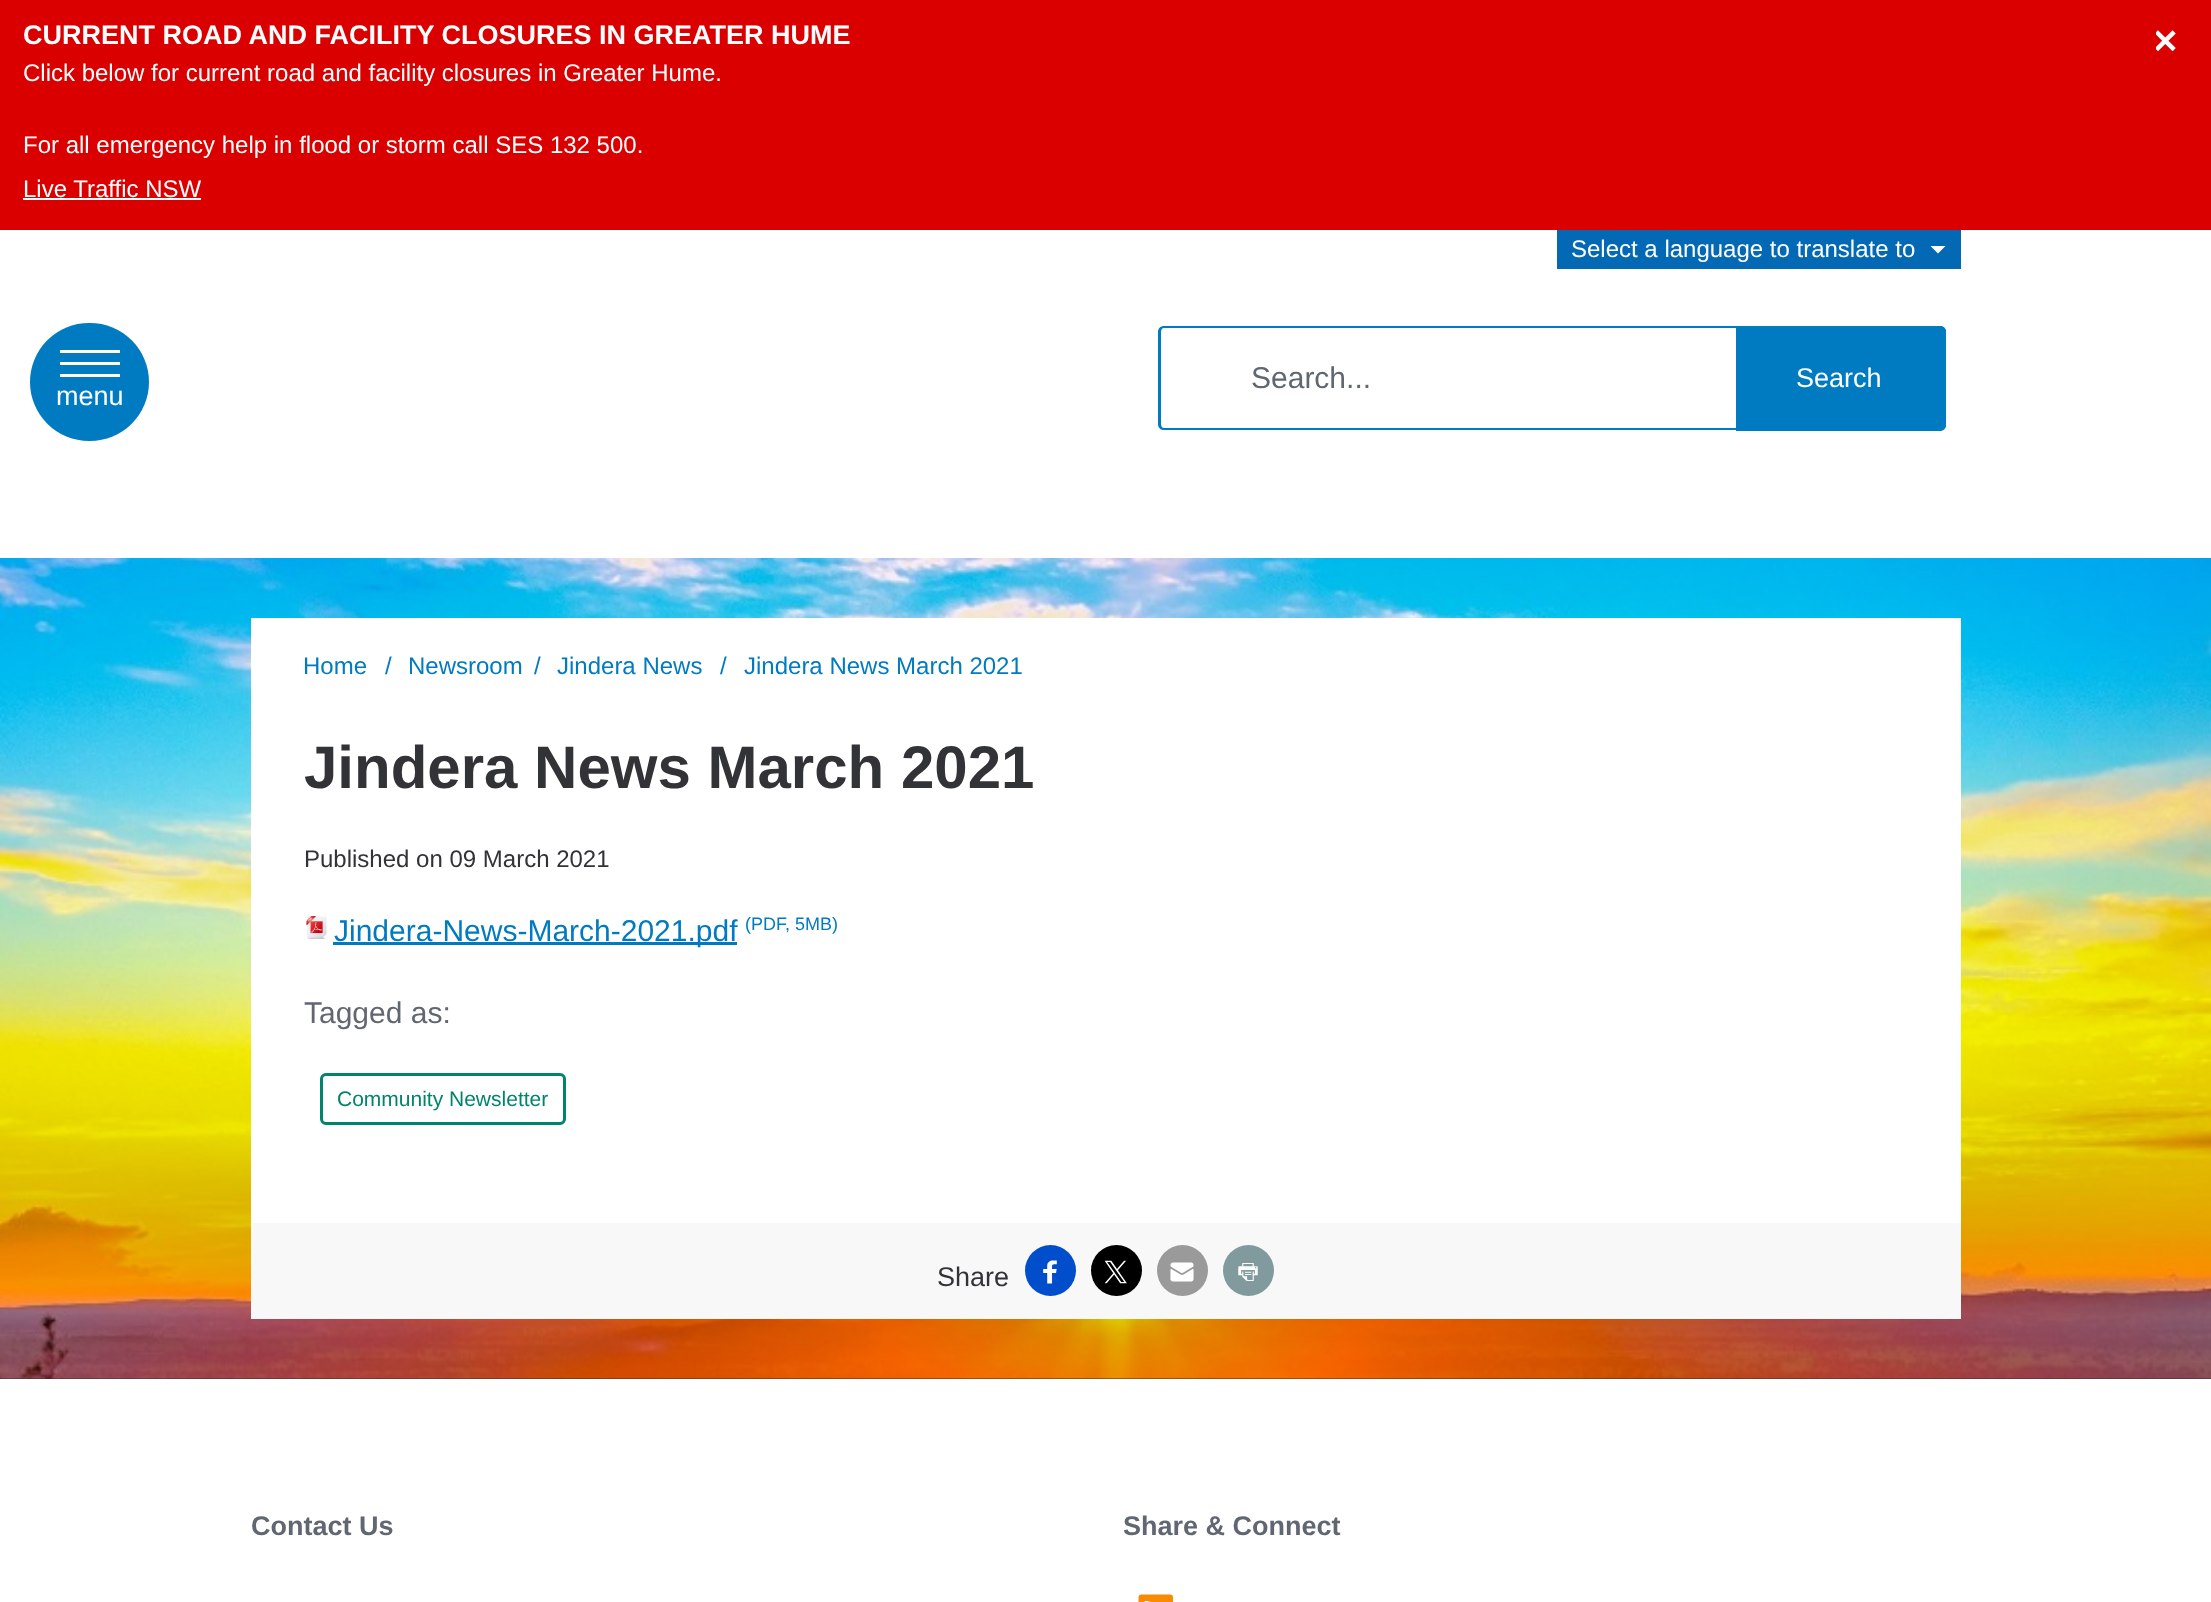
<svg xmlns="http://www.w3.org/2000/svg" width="2211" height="1602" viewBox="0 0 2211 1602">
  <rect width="100%" height="100%" fill="#fff"/>
  <path d="M0 0h2211v230H0z" fill="#da0000"/>
  <image x="2156" y="30" width="20" height="22" href="img/1.png"/>
  <path d="M23 198h178v2H23z" fill="#fff"/>
  <path d="M1557 230h404v39H1557z" fill="#0369b5"/>
  <path d="M1930.5 246H1945.5L1938 253.5Z" fill="#fff"/>
  <path d="M1164 326H1736V430H1164C1161 430 1158 428 1158 424V332C1158 328 1161 326 1164 326ZM1164 328H1736V428H1164C1162 428 1161 426 1161 424V332C1161 330 1162 328 1164 328Z" fill="#007bc1" fill-rule="evenodd"/>
  <path d="M1736 326H1940C1943.5 326 1946 328.5 1946 332V425C1946 428.5 1943.5 431 1940 431H1736Z" fill="#007bc1"/>
  <path d="M1736 326H1940C1943 326 1946 328 1946 332V424C1946 428 1943 430 1940 430H1736ZM1736 328H1940C1941 328 1942 330 1942 332V424C1942 426 1941 428 1940 428H1736Z" fill="#007bc1" fill-rule="evenodd"/>
  <rect x="30" y="323" width="119" height="118" rx="59" fill="#007bc1"/>
  <path d="M60 362h60v3H60z" fill="#fff"/>
  <path d="M60 350h60v3H60z" fill="#fff"/>
  <path d="M60 374h60v3H60z" fill="#fff"/>
  <path d="M0 1378h2211v1H0z" fill="#313337"/>
  <image x="0" y="558" width="2211" height="821" href="img/2.png"/>
  <path d="M251 618h1710v605H251z" fill="#fff"/>
  <image x="306" y="916" width="21" height="23" href="img/3.png"/>
  <path d="M333 942h404v3H333z" fill="#007bc1"/>
  <rect x="321.5" y="1074.5" width="243" height="49" rx="4.5" fill="none" stroke="#00846d" stroke-width="3"/>
  <path d="M251 1223h1710v96H251z" fill="#f8f8f8"/>
  <circle cx="1050.5" cy="1270.5" r="25.5" fill="#004ecc"/>
  <image x="1043" y="1260" width="14" height="24" href="img/4.png"/>
  <circle cx="1116.5" cy="1270.5" r="25.5" fill="#000"/>
  <image x="1104" y="1260" width="23" height="24" href="img/5.png"/>
  <circle cx="1182.5" cy="1270.5" r="25.5" fill="#9b9a9a"/>
  <image x="1170" y="1262" width="24" height="20" href="img/6.png"/>
  <circle cx="1248.5" cy="1270.5" r="25.5" fill="#809a9d"/>
  <image x="1238" y="1263" width="20" height="18" href="img/7.png"/>
  <image x="1138" y="1594" width="35" height="8" href="img/8.png"/>
  <text x="23" y="44" font-family="Liberation Sans" font-size="27" font-weight="bold" fill="#fff">CURRENT ROAD AND FACILITY CLOSURES IN GREATER HUME</text>
  <g font-family="Liberation Sans" font-size="24" fill="#fff">
    <text x="23" y="81">Click below for current road and facility closures in Greater Hume.</text>
    <text x="23" y="153">For all emergency help in flood or storm call SES 132 500.</text>
    <text x="23" y="197">Live Traffic NSW</text>
    <text x="1571" y="257">Select a language to translate to</text>
  </g>
  <text x="1251" y="388" font-family="Liberation Sans" font-size="30" fill="#616772">Search...</text>
  <g font-family="Liberation Sans" font-size="27" fill="#fff">
    <text x="1796" y="387">Search</text>
    <text x="56" y="405">menu</text>
  </g>
  <g font-family="Liberation Sans" font-size="24" fill="#007bc1">
    <text x="303" y="674">Home</text>
    <text x="385" y="674">/</text>
    <text x="408" y="674">Newsroom</text>
    <text x="534" y="674">/</text>
    <text x="557" y="674">Jindera News</text>
    <text x="720" y="674">/</text>
    <text x="744" y="674">Jindera News March 2021</text>
  </g>
  <text x="304" y="788" font-family="Liberation Sans" font-size="60" font-weight="bold" fill="#313337">Jindera News March 2021</text>
  <text x="304" y="867" font-family="Liberation Sans" font-size="24" fill="#313337">Published on 09 March 2021</text>
  <text x="334" y="941" font-family="Liberation Sans" font-size="30" fill="#007bc1">Jindera-News-March-2021.pdf</text>
  <text x="745" y="930" font-family="Liberation Sans" font-size="18" fill="#007bc1">(PDF, 5MB)</text>
  <text x="304" y="1023" font-family="Liberation Sans" font-size="30" fill="#616772">Tagged as:</text>
  <text x="337" y="1106" font-family="Liberation Sans" font-size="21" fill="#00846d">Community Newsletter</text>
  <text x="937" y="1286" font-family="Liberation Sans" font-size="27" fill="#313337">Share</text>
  <g font-family="Liberation Sans" font-size="27" font-weight="bold" fill="#616772">
    <text x="251" y="1535">Contact Us</text>
    <text x="1123" y="1535">Share &amp; Connect</text>
  </g>
</svg>
